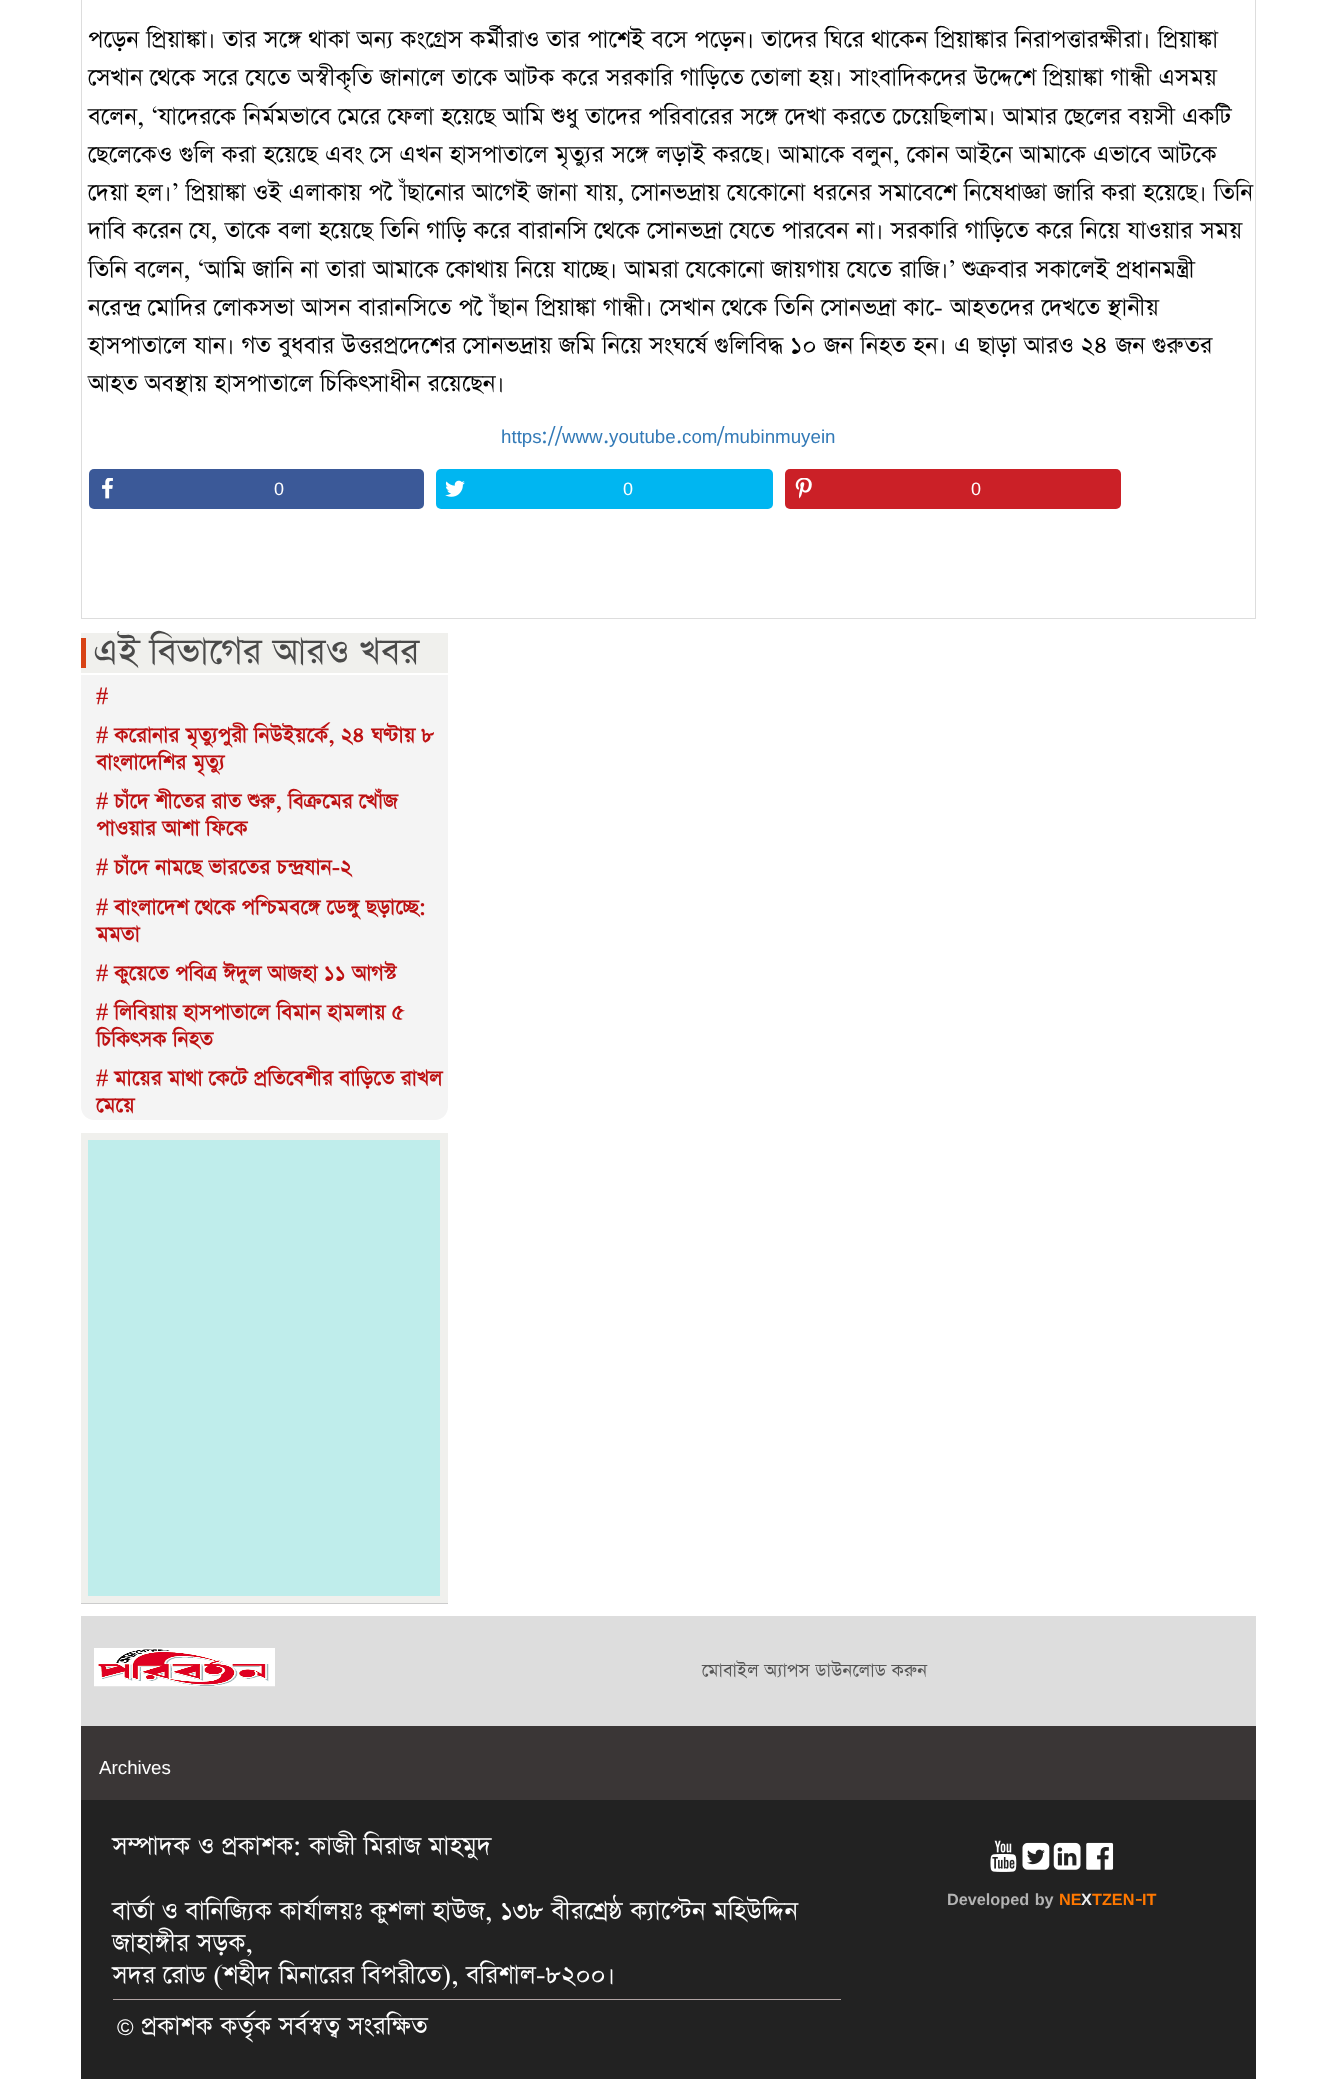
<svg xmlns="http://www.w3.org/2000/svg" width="1336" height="2079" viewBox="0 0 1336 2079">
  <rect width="100%" height="100%" fill="#fff"/>
  <path d="M1255 0h1v619H1255z" fill="#ddd"/>
  <path d="M81 618h1175v1H81z" fill="#ddd"/>
  <path d="M81 0h1v619H81z" fill="#ddd"/>
  <rect x="89" y="469" width="335" height="40" rx="5" fill="#3b5998"/>
  <image x="102" y="478" width="11" height="21" href="img/1.png"/>
  <rect x="436" y="469" width="337" height="40" rx="5" fill="#00b6f1"/>
  <image x="445" y="480" width="20" height="17" href="img/2.png"/>
  <rect x="785" y="469" width="336" height="40" rx="5" fill="#cb2027"/>
  <image x="795" y="478" width="17" height="21" href="img/3.png"/>
  <path d="M81 633h367v40H81z" fill="#f0f0ed"/>
  <path d="M81 638h5v30H81z" fill="#d84315"/>
  <path d="M81 675H448V1107C448 1114 442 1120 435 1120H94C87 1120 81 1114 81 1107Z" fill="#f4f4f4"/>
  <path d="M81 1133h367v470H81z" fill="#f0f0ed"/>
  <path d="M81 1603h367v1H81z" fill="#ccc"/>
  <path d="M88 1140h352v456H88z" fill="#bfedeb"/>
  <path d="M81 1616h1175v110H81z" fill="#ddd"/>
  <image x="94" y="1648" width="181" height="39" href="img/4.png"/>
  <path d="M81 1726h1175v74H81z" fill="#3a3636"/>
  <path d="M81 1800h1175v279H81z" fill="#222"/>
  <path d="M113 1999h728v1H113z" fill="#b1a4a4"/>
  <image x="990" y="1840" width="27" height="32" href="img/5.png"/>
  <image x="1022" y="1842" width="28" height="28" href="img/6.png"/>
  <image x="1053" y="1842" width="28" height="28" href="img/7.png"/>
  <image x="1086" y="1842" width="28" height="28" href="img/8.png"/>
  <g font-family="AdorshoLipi" font-size="21.25" fill="#020202">
    <text x="88" y="48">পড়েন প্রিয়াঙ্কা। তার সঙ্গে থাকা অন্য কংগ্রেস কর্মীরাও তার পাশেই বসে পড়েন। তাদের ঘিরে থাকেন প্রিয়াঙ্কার নিরাপত্তারক্ষীরা। প্রিয়াঙ্কা</text>
    <text x="88" y="86">সেখান থেকে সরে যেতে অস্বীকৃতি জানালে তাকে আটক করে সরকারি গাড়িতে তোলা হয়। সাংবাদিকদের উদ্দেশে প্রিয়াঙ্কা গান্ধী এসময়</text>
    <text x="88" y="125">বলেন, ‘যাদেরকে নির্মমভাবে মেরে ফেলা হয়েছে আমি শুধু তাদের পরিবারের সঙ্গে দেখা করতে চেয়েছিলাম। আমার ছেলের বয়সী একটি</text>
    <text x="88" y="163">ছেলেকেও গুলি করা হয়েছে এবং সে এখন হাসপাতালে মৃত্যুর সঙ্গে লড়াই করছে। আমাকে বলুন, কোন আইনে আমাকে এভাবে আটকে</text>
    <text x="88" y="201">দেয়া হল।’ প্রিয়াঙ্কা ওই এলাকায় পৌঁছানোর আগেই জানা যায়, সোনভদ্রায় যেকোনো ধরনের সমাবেশে নিষেধাজ্ঞা জারি করা হয়েছে। তিনি</text>
    <text x="88" y="239">দাবি করেন যে, তাকে বলা হয়েছে তিনি গাড়ি করে বারানসি থেকে সোনভদ্রা যেতে পারবেন না। সরকারি গাড়িতে করে নিয়ে যাওয়ার সময়</text>
    <text x="88" y="278">তিনি বলেন, ‘আমি জানি না তারা আমাকে কোথায় নিয়ে যাচ্ছে। আমরা যেকোনো জায়গায় যেতে রাজি।’ শুক্রবার সকালেই প্রধানমন্ত্রী</text>
    <text x="88" y="316">নরেন্দ্র মোদির লোকসভা আসন বারানসিতে পৌঁছান প্রিয়াঙ্কা গান্ধী। সেখান থেকে তিনি সোনভদ্রা কা-ে আহতদের দেখতে স্থানীয়</text>
    <text x="88" y="354">হাসপাতালে যান। গত বুধবার উত্তরপ্রদেশের সোনভদ্রায় জমি নিয়ে সংঘর্ষে গুলিবিদ্ধ ১০ জন নিহত হন। এ ছাড়া আরও ২৪ জন গুরুতর</text>
    <text x="88" y="392">আহত অবস্থায় হাসপাতালে চিকিৎসাধীন রয়েছেন।</text>
  </g>
  <text x="501" y="443" font-family="Liberation Sans" font-size="18.75" fill="#337ab7">https</text>
  <text x="541" y="443" font-family="AdorshoLipi" font-size="18.75" fill="#337ab7">://</text>
  <text x="562" y="443" font-family="Liberation Sans" font-size="18.75" fill="#337ab7">www</text>
  <text x="603" y="443" font-family="AdorshoLipi" font-size="18.75" fill="#337ab7">.</text>
  <text x="609" y="443" font-family="Liberation Sans" font-size="18.75" fill="#337ab7">youtube</text>
  <text x="676" y="443" font-family="AdorshoLipi" font-size="18.75" fill="#337ab7">.</text>
  <text x="682" y="443" font-family="Liberation Sans" font-size="18.75" fill="#337ab7">com</text>
  <text x="717" y="443" font-family="AdorshoLipi" font-size="18.75" fill="#337ab7">/</text>
  <text x="724" y="443" font-family="Liberation Sans" font-size="18.75" fill="#337ab7">mubinmuyein</text>
  <g font-family="Liberation Sans" font-size="18" fill="#fff">
    <text x="274" y="495">0</text>
    <text x="623" y="495">0</text>
    <text x="971" y="495">0</text>
  </g>
  <text x="93" y="665" font-family="AdorshoLipi" font-size="32.5" fill="#4a4a4a">এই বিভাগের আরও খবর</text>
  <g font-family="AdorshoLipi" font-size="18.75" font-weight="bold" fill="#bd1112">
    <text x="96" y="704">#</text>
    <text x="96" y="743"># করোনার মৃত্যুপুরী নিউইয়র্কে, ২৪ ঘণ্টায় ৮</text>
    <text x="96" y="770">বাংলাদেশির মৃত্যু</text>
    <text x="96" y="809"># চাঁদে শীতের রাত শুরু, বিক্রমের খোঁজ</text>
    <text x="96" y="836">পাওয়ার আশা ফিকে</text>
    <text x="96" y="875"># চাঁদে নামছে ভারতের চন্দ্রযান-২</text>
    <text x="96" y="915"># বাংলাদেশ থেকে পশ্চিমবঙ্গে ডেঙ্গু ছড়াচ্ছে:</text>
    <text x="96" y="942">মমতা</text>
    <text x="96" y="981"># কুয়েতে পবিত্র ঈদুল আজহা ১১ আগস্ট</text>
    <text x="96" y="1020"># লিবিয়ায় হাসপাতালে বিমান হামলায় ৫</text>
    <text x="96" y="1047">চিকিৎসক নিহত</text>
    <text x="96" y="1086"># মায়ের মাথা কেটে প্রতিবেশীর বাড়িতে রাখল</text>
    <text x="96" y="1113">মেয়ে</text>
  </g>
  <text x="702" y="1677" font-family="AdorshoLipi" font-size="16.25" fill="#555">মোবাইল অ্যাপস ডাউনলোড করুন</text>
  <text x="99" y="1774" font-family="Liberation Sans" font-size="18.75" fill="#fff">Archives</text>
  <g font-family="AdorshoLipi" font-size="22.5" fill="#fff">
    <text x="112" y="1855">সম্পাদক ও প্রকাশক: কাজী মিরাজ মাহমুদ</text>
    <text x="112" y="1920">বার্তা ও বানিজ্যিক কার্যালয়ঃ কুশলা হাউজ, ১৩৮ বীরশ্রেষ্ঠ ক্যাপ্টেন মহিউদ্দিন</text>
    <text x="112" y="1952">জাহাঙ্গীর সড়ক,</text>
    <text x="112" y="1984">সদর রোড (শহীদ মিনারের বিপরীতে), বরিশাল-৮২০০।</text>
  </g>
  <text x="117" y="2035" font-family="Liberation Sans" font-size="22.5" fill="#fff">©</text>
  <text x="141" y="2035" font-family="AdorshoLipi" font-size="22.5" fill="#fff">প্রকাশক কর্তৃক সর্বস্বত্ব সংরক্ষিত</text>
  <text x="947" y="1905" word-spacing="1" font-family="Liberation Sans" font-size="16.25" font-weight="bold" fill="#b3b3b3">Developed by</text>
  <text x="1059" y="1905" font-family="Liberation Sans" font-size="16.25" font-weight="bold" fill="#ff7800">NE</text>
  <text x="1081" y="1905" font-family="Liberation Sans" font-size="16.25" font-weight="bold" fill="#efefef">X</text>
  <text x="1092" y="1905" font-family="Liberation Sans" font-size="16.25" font-weight="bold" fill="#ff7800">TZEN</text>
  <text x="1135" y="1905" font-family="AdorshoLipi" font-size="16.25" font-weight="bold" fill="#ff7800">-</text>
  <text x="1142" y="1905" font-family="Liberation Sans" font-size="16.25" font-weight="bold" fill="#ff7800">IT</text>
</svg>
